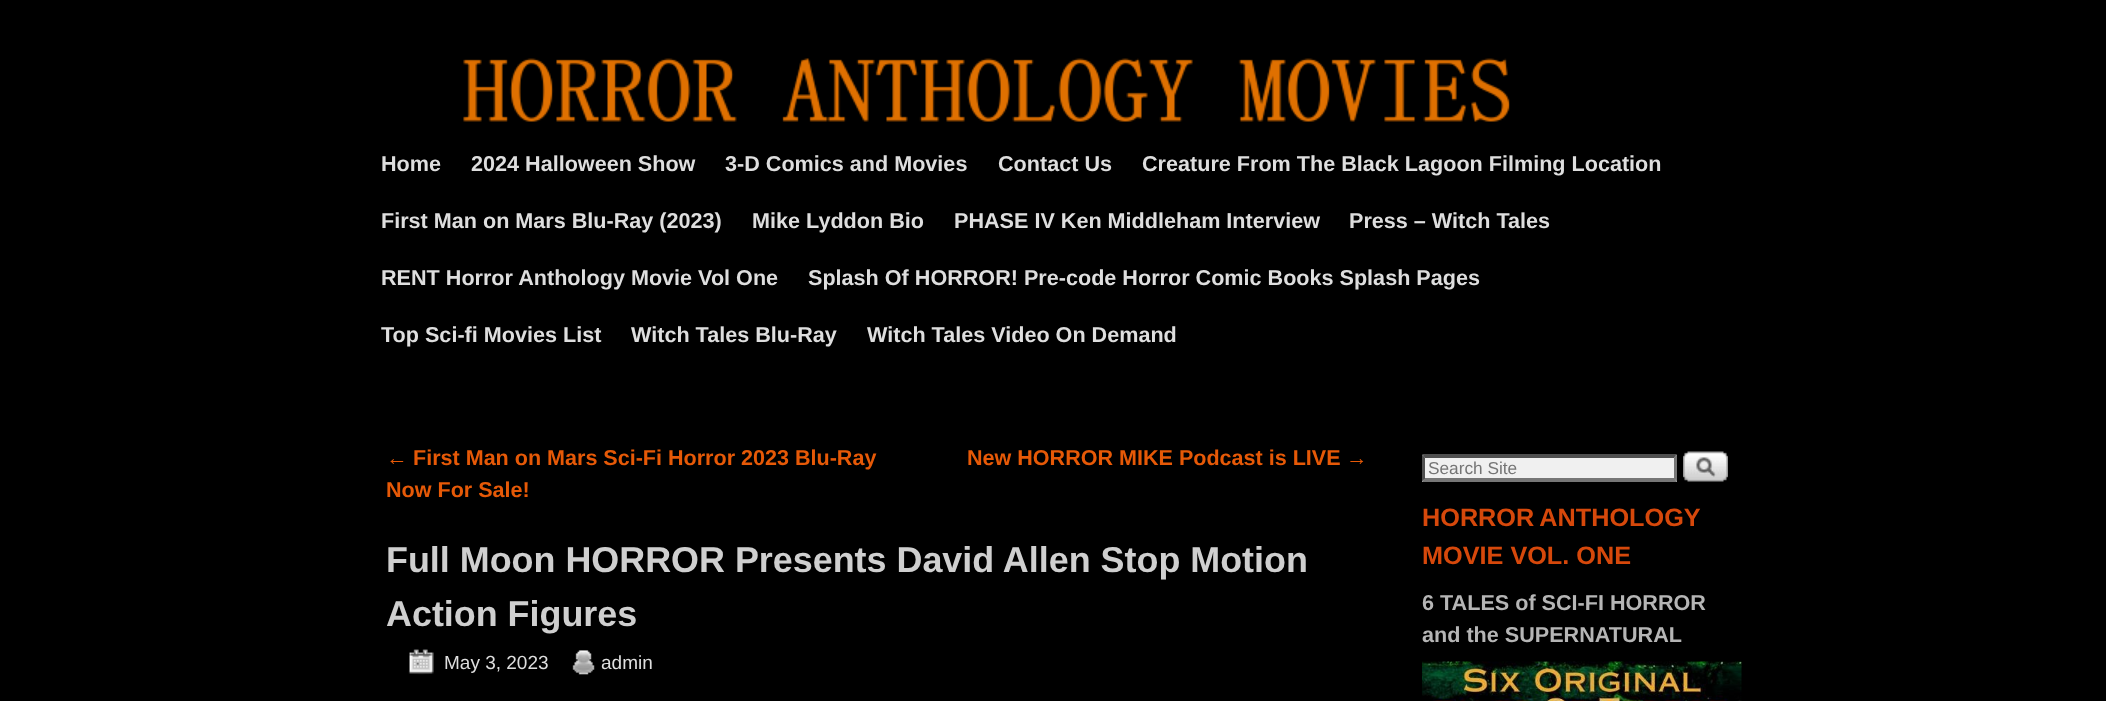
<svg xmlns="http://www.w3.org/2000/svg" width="2106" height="701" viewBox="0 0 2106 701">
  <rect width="100%" height="100%" fill="#000"/>
  <image x="463" y="58" width="1047" height="64" href="img/1.png"/>
  <image x="408" y="649" width="26" height="26" href="img/2.png"/>
  <image x="572" y="650" width="23" height="25" href="img/3.png"/>
  <path d="M1422 455h255v27H1422z" fill="#f0f0f0"/>
  <path d="M1422 454H1677L1674 458H1425Z" fill="#4f4f4f"/>
  <path d="M1677 454.5V481.5L1674 478.5V457.5Z" fill="#767676"/>
  <path d="M1677 482H1422L1425 478H1674Z" fill="#767676"/>
  <path d="M1422 481.5V454.5L1425 457.5V478.5Z" fill="#4f4f4f"/>
  <image x="1683" y="451" width="45" height="31" href="img/4.png"/>
  <image x="1422" y="661" width="320" height="40" href="img/5.png"/>
  <g font-family="Liberation Sans" font-size="21.6" font-weight="bold" fill="#dedede">
    <text x="381" y="171">Home</text>
    <text x="471" y="171">2024 Halloween Show</text>
    <text x="725" y="171">3-D Comics and Movies</text>
    <text x="998" y="171">Contact Us</text>
    <text x="1142" y="171">Creature From The Black Lagoon Filming Location</text>
    <text x="381" y="228">First Man on Mars Blu-Ray (2023)</text>
    <text x="752" y="228">Mike Lyddon Bio</text>
    <text x="954" y="228">PHASE IV Ken Middleham Interview</text>
    <text x="1349" y="228">Press – Witch Tales</text>
    <text x="381" y="285">RENT Horror Anthology Movie Vol One</text>
    <text x="808" y="285">Splash Of HORROR! Pre-code Horror Comic Books Splash Pages</text>
    <text x="381" y="342">Top Sci-fi Movies List</text>
    <text x="631" y="342">Witch Tales Blu-Ray</text>
    <text x="867" y="342">Witch Tales Video On Demand</text>
  </g>
  <text x="386" y="465" font-family="Liberation Sans" font-size="21.55" fill="#e65907">←</text>
  <g font-family="Liberation Sans" font-size="21.55" font-weight="bold" fill="#e65907">
    <text x="413" y="465">First Man on Mars Sci-Fi Horror 2023 Blu-Ray</text>
    <text x="386" y="497">Now For Sale!</text>
    <text x="967" y="465">New HORROR MIKE Podcast is LIVE</text>
  </g>
  <text x="1346" y="465" font-family="Liberation Sans" font-size="21.55" fill="#e65907">→</text>
  <g font-family="Liberation Sans" font-size="35.9" font-weight="bold" fill="#cfcfcf">
    <text x="386" y="572">Full Moon HORROR Presents David Allen Stop Motion</text>
    <text x="386" y="626">Action Figures</text>
  </g>
  <g font-family="Liberation Sans" font-size="19" fill="#dedede">
    <text x="444" y="669">May 3, 2023</text>
    <text x="601" y="669">admin</text>
  </g>
  <text x="1428" y="474" font-family="Liberation Sans" font-size="17.25" fill="#757575">Search Site</text>
  <g font-family="Liberation Sans" font-size="25.25" font-weight="bold" fill="#d6480b">
    <text x="1422" y="526" word-spacing="-1">HORROR ANTHOLOGY</text>
    <text x="1422" y="564">MOVIE VOL. ONE</text>
  </g>
  <g font-family="Liberation Sans" font-size="21.6" font-weight="bold" fill="#b5b5b5">
    <text x="1422" y="610">6 TALES of SCI-FI HORROR</text>
    <text x="1422" y="642">and the SUPERNATURAL</text>
  </g>
</svg>
